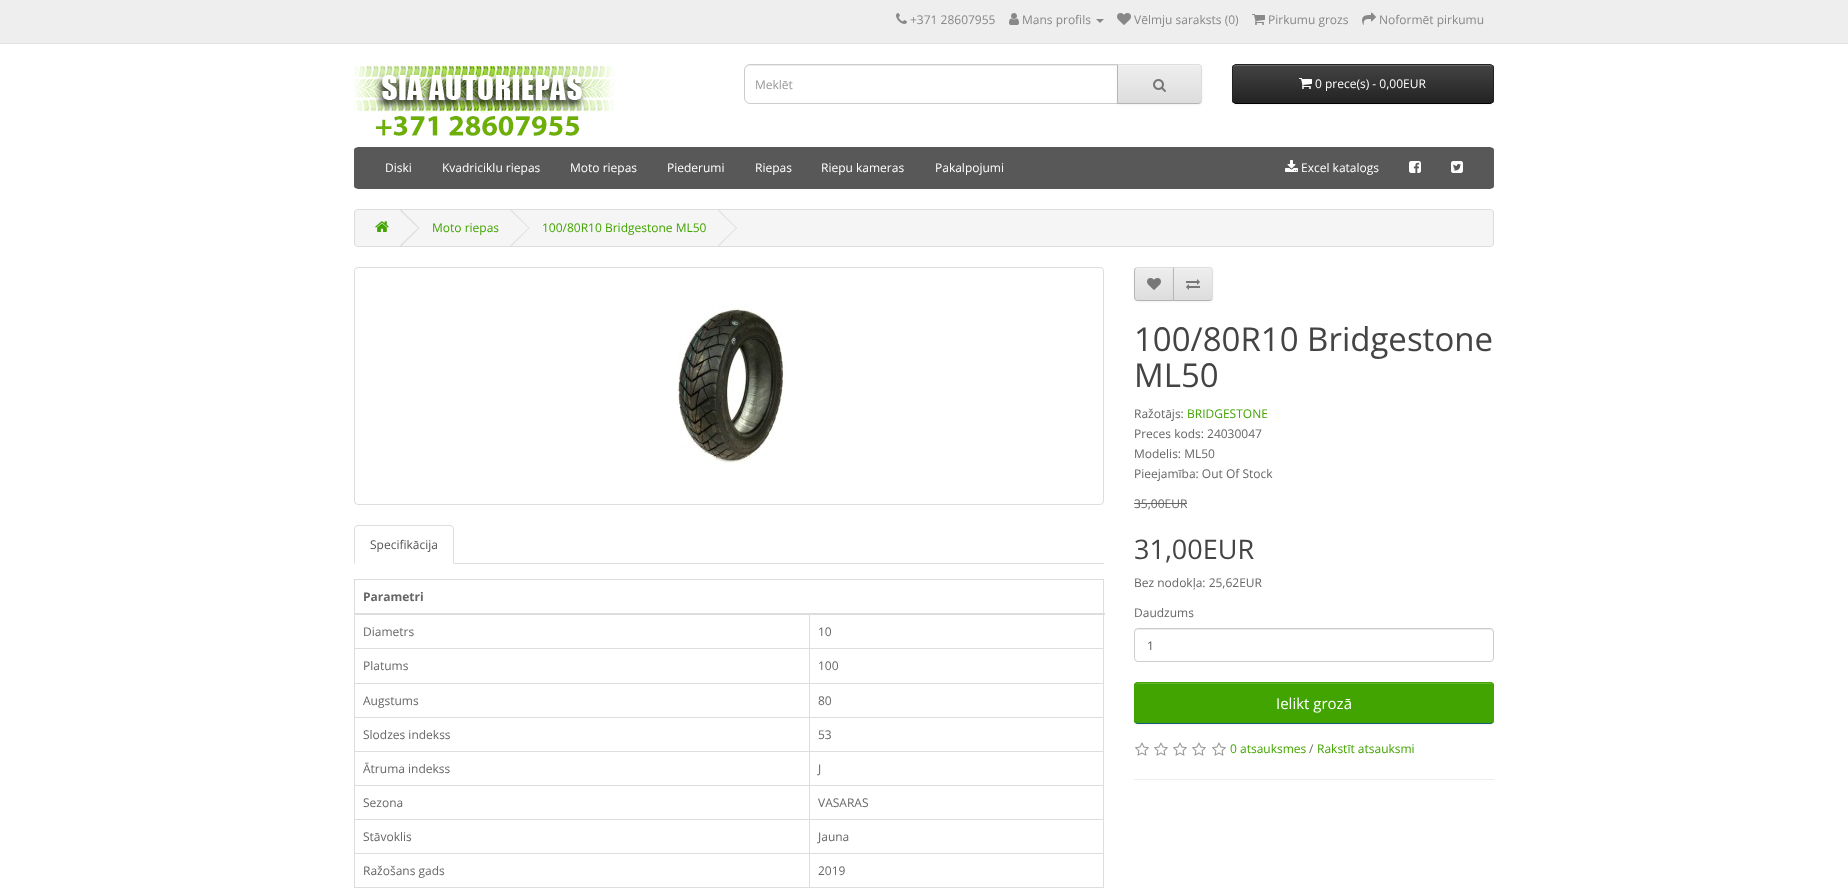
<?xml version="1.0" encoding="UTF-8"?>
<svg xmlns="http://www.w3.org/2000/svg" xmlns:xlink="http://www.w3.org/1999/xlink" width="1848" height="894">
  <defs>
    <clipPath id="clip1"><path d="M 1117 64 h 81 c 2 0 4 2 4 4 v 32 c 0 2 -2 4 -4 4 h -81 z" /></clipPath>
    <linearGradient id="g1" gradientUnits="userSpaceOnUse" x1="1160" y1="65" x2="1160" y2="103"><stop offset="0" stop-color="#eeeeee" /><stop offset="1" stop-color="#dddddd" /></linearGradient>
    <clipPath id="clip2"><rect x="1232" y="64" width="262" height="40" rx="4" /></clipPath>
    <linearGradient id="g2" gradientUnits="userSpaceOnUse" x1="1363" y1="65" x2="1363" y2="103"><stop offset="0" stop-color="#444444" /><stop offset="1" stop-color="#222222" /></linearGradient>
    <clipPath id="clip3"><rect x="354" y="147" width="1140" height="42" rx="4" /></clipPath>
    <clipPath id="clip4"><path d="M 1138 267 h 36 v 34 h -36 c -2 0 -4 -2 -4 -4 v -26 c 0 -2 2 -4 4 -4 z" /></clipPath>
    <linearGradient id="g3" gradientUnits="userSpaceOnUse" x1="1154" y1="268" x2="1154" y2="300"><stop offset="0" stop-color="#eeeeee" /><stop offset="1" stop-color="#dddddd" /></linearGradient>
    <clipPath id="clip5"><path d="M 1173 267 h 36 c 2 0 4 2 4 4 v 26 c 0 2 -2 4 -4 4 h -36 z" /></clipPath>
    <linearGradient id="g4" gradientUnits="userSpaceOnUse" x1="1193" y1="268" x2="1193" y2="300"><stop offset="0" stop-color="#eeeeee" /><stop offset="1" stop-color="#dddddd" /></linearGradient>
    <clipPath id="clip6"><rect x="1134" y="682" width="360" height="42" rx="4" /></clipPath>
  </defs>
  <rect width="100%" height="100%" fill="#ffffff" />
  <rect width="1848" height="43" fill="#eeeeee" />
  <rect y="43" width="1848" height="1" fill="#e2e2e2" />
  <image x="896" y="13" width="11" height="11" xlink:href="image1.png" />
  <image x="1009" y="13" width="10" height="12" xlink:href="image2.png" />
  <path d="M 1096 19 h 8 l -4 4 z" fill="#888888" />
  <image x="1117" y="13" width="14" height="12" xlink:href="image3.png" />
  <image x="1252" y="14" width="13" height="11" xlink:href="image4.png" />
  <image x="1362" y="12" width="14" height="13" xlink:href="image5.png" />
  <image x="354" y="65" width="261" height="71" xlink:href="image6.png" />
  <path d="M 750 66 h 367 v -1 h -367 c -3 0 -5 2 -5 5 v 1 c 0 -3 2 -5 5 -5 z" fill="#ececec" />
  <path d="M 750 64.5 h 367.5 v 39 h -367.5 c -3 0 -5.5 -2.5 -5.5 -5.5 v -28 c 0 -3 2.5 -5.5 5.5 -5.5 z" fill="none" stroke="#cccccc" />
  <rect x="1117" y="65" width="85" height="40" rx="4" fill="#000000" fill-opacity="0.05" filter="blur(1px)" />
  <path d="M 1117 64 h 81 c 2 0 4 2 4 4 v 32 c 0 2 -2 4 -4 4 h -81 z" fill="#e7e7e7" />
  <g clip-path="url(#clip1)">
    <rect x="1118" y="65" width="84" height="38" fill="url(#g1)" />
  </g>
  <path d="M 1118 66 h 80 c 2 0 3 1 3 3 v -1 c 0 -2 -1 -3 -3 -3 h -80 z" fill="#f1f1f1" />
  <path d="M 1117 64 l 1 1 h 81 l 1 1 l 1 -1 l -3 -1 z" fill="#dddddd" />
  <path d="M 1202 100 v -32 c 0 -1 -0.5 -2 -1 -3 l -1 1 c 1 0 1 1 1 2 v 32 c 0 1 0 2 -1 2 l 1 1 c 0.5 -1 1 -2 1 -3 z" fill="#dddddd" />
  <path d="M 1198 104 l 3 -1 l -1 -1 l -1 1 h -81 l -1 1 z" fill="#b3b3b3" />
  <path d="M 1117 64 v 40 l 1 -1 v -38 z" fill="#b7b7b7" />
  <image x="1153" y="79" width="13" height="13" xlink:href="image7.png" />
  <rect x="1232" y="65" width="262" height="40" rx="4" fill="#000000" fill-opacity="0.05" filter="blur(1px)" />
  <g clip-path="url(#clip2)">
    <rect x="1232" y="65" width="262" height="38" fill="url(#g2)" />
  </g>
  <path d="M 1236 66 h 255 l 2 1 v 2 v -1 c 0 -2 -1 -3 -3 -3 h -254 c -2 0 -3 1 -3 3 v 1 c 0 -2 1 -3 3 -3 z" fill="#696969" />
  <path d="M 1492.5 102.5 c -0.5 0.5 -1.5 1 -2.5 1 h -254 c -1 0 -2 -0.5 -2.5 -1" fill="none" stroke="#000000" />
  <path d="M 1233.5 102.5 c -0.5 -0.5 -1 -1.5 -1 -2.5 v -32 c 0 -1 0.5 -2 1 -2.5 c 0.5 -0.5 1.5 -1 2.5 -1 h 254 c 1 0 2 0.5 2.5 1 c 0.5 0.5 1 1.5 1 2.5 v 32 c 0 1 -0.5 2 -1 2.5" fill="none" stroke="#222222" />
  <image x="1299" y="78" width="13" height="11" xlink:href="image8.png" />
  <g clip-path="url(#clip3)">
    <rect x="354" y="148" width="1140" height="40" fill="#585858" />
  </g>
  <rect x="354.5" y="147.5" width="1139" height="41" rx="3.5" fill="none" stroke="#585858" />
  <image x="1285" y="160" width="13" height="12" xlink:href="image9.png" />
  <image x="1409" y="161" width="12" height="12" xlink:href="image10.png" />
  <image x="1451" y="161" width="12" height="12" xlink:href="image11.png" />
  <rect x="354.5" y="209.5" width="1139" height="37" rx="3.5" fill="#f5f5f5" stroke="#dddddd" />
  <image x="375" y="221" width="14" height="11" xlink:href="image12.png" />
  <path d="M 400 210.5 l 1 -1 l 18.5 18.5 l -1 0.5 z" fill="#dddddd" />
  <path d="M 400 245.5 l 18.5 -18 l 1 0.5 l -18.5 18.5 z" fill="#dddddd" />
  <path d="M 510.5 210.5 l 0.5 -1 l 18.5 18.5 l -0.5 0.5 z" fill="#dddddd" />
  <path d="M 510.5 245.5 l 18.5 -18 l 0.5 0.5 l -18.5 18.5 z" fill="#dddddd" />
  <path d="M 718 210.5 l 0.5 -1 l 18.5 18.5 l -0.5 0.5 z" fill="#dddddd" />
  <path d="M 718 245.5 l 18.5 -18 l 0.5 0.5 l -18.5 18.5 z" fill="#dddddd" />
  <rect x="354.5" y="267.5" width="749" height="237" rx="3.5" fill="none" stroke="#dddddd" />
  <image x="677" y="304" width="108" height="160" xlink:href="image13.png" />
  <rect x="454" y="563" width="650" height="1" fill="#dddddd" />
  <path d="M 358 525 l -3 1 l 1 1 l 2 -1 h 92 l 2 1 l 1 -1 l -3 -1 z" fill="#dddddd" />
  <path d="M 454 564 v -35 c 0 -1 -0.5 -2 -1 -3 l -1 1 c 1 0 1 1 1 2 v 34 z" fill="#dddddd" />
  <path d="M 354 564 l 1 -1 v -34 c 0 -1 0 -2 1 -2 l -1 -1 c -0.5 1 -1 2 -1 3 z" fill="#dddddd" />
  <rect x="354" y="579" width="750" height="1" fill="#dddddd" />
  <rect x="1103" y="579" width="1" height="309" fill="#dddddd" />
  <rect x="354" y="887" width="750" height="1" fill="#dddddd" />
  <rect x="354" y="579" width="1" height="309" fill="#dddddd" />
  <rect x="809" y="648" width="295" height="1" fill="#dddddd" />
  <rect x="809" y="683" width="295" height="1" fill="#dddddd" />
  <rect x="809" y="717" width="295" height="1" fill="#dddddd" />
  <rect x="809" y="751" width="295" height="1" fill="#dddddd" />
  <rect x="809" y="785" width="295" height="1" fill="#dddddd" />
  <rect x="809" y="819" width="295" height="1" fill="#dddddd" />
  <rect x="809" y="853" width="295" height="1" fill="#dddddd" />
  <rect x="809" y="853" width="1" height="35" fill="#dddddd" />
  <rect x="354" y="853" width="456" height="1" fill="#dddddd" />
  <rect x="809" y="819" width="1" height="35" fill="#dddddd" />
  <rect x="354" y="819" width="456" height="1" fill="#dddddd" />
  <rect x="809" y="785" width="1" height="35" fill="#dddddd" />
  <rect x="354" y="785" width="456" height="1" fill="#dddddd" />
  <rect x="809" y="751" width="1" height="35" fill="#dddddd" />
  <rect x="354" y="751" width="456" height="1" fill="#dddddd" />
  <rect x="809" y="717" width="1" height="35" fill="#dddddd" />
  <rect x="354" y="717" width="456" height="1" fill="#dddddd" />
  <rect x="809" y="683" width="1" height="35" fill="#dddddd" />
  <rect x="354" y="683" width="456" height="1" fill="#dddddd" />
  <rect x="809" y="648" width="1" height="36" fill="#dddddd" />
  <rect x="354" y="648" width="456" height="1" fill="#dddddd" />
  <rect x="809" y="614" width="1" height="35" fill="#dddddd" />
  <rect x="354" y="613" width="751" height="2" fill="#dddddd" />
  <rect x="1134" y="268" width="40" height="34" rx="4" fill="#000000" fill-opacity="0.05" filter="blur(1px)" />
  <g clip-path="url(#clip4)">
    <rect x="1134" y="268" width="39" height="32" fill="url(#g3)" />
  </g>
  <path d="M 1138 269 h 35 v -1 h -35 c -1.5 0 -3 1.5 -3 3 v 1 c 0 -2 1 -3 3 -3 z" fill="#f1f1f1" />
  <path d="M 1138 267 c -1 0 -2 0.5 -3 1 l 1 1 c 0 -1 1 -1 2 -1 h 35 l 1 -1 z" fill="#dddddd" />
  <path d="M 1174 301 l -1 -1 h -35 c -1 0 -2 0 -2 -1 l -1 1 c 1 0.5 2 1 3 1 z" fill="#b3b3b3" />
  <path d="M 1134 271 v 26 c 0 1 0.5 2 1 3 l 1 -1 c -1 0 -1 -1 -1 -2 v -26 c 0 -1 0 -2 1 -2 l -1 -1 c -0.5 1 -1 2 -1 3 z" fill="#b7b7b7" />
  <image x="1147" y="278" width="14" height="12" xlink:href="image14.png" />
  <rect x="1173" y="268" width="40" height="34" rx="4" fill="#000000" fill-opacity="0.05" filter="blur(1px)" />
  <g clip-path="url(#clip5)">
    <rect x="1174" y="268" width="39" height="32" fill="url(#g4)" />
  </g>
  <path d="M 1174 269 h 35 c 2 0 3 1 3 3 v -1 c 0 -1.5 -1.5 -3 -3 -3 h -35 z" fill="#f1f1f1" />
  <path d="M 1173 267 l 1 1 h 35 c 1 0 2 0 2 1 l 1 -1 c -1 -0.5 -2 -1 -3 -1 z" fill="#dddddd" />
  <path d="M 1213 297 v -26 c 0 -1 -0.5 -2 -1 -3 l -1 1 c 1 0 1 1 1 2 v 26 c 0 1 0 2 -1 2 l 1 1 c 0.5 -1 1 -2 1 -3 z" fill="#dddddd" />
  <path d="M 1209 301 c 1 0 2 -0.5 3 -1 l -1 -1 c 0 1 -1 1 -2 1 h -35 l -1 1 z" fill="#b3b3b3" />
  <path d="M 1173 267 v 34 l 1 -1 v -32 z" fill="#b7b7b7" />
  <image x="1186" y="279" width="14" height="11" xlink:href="image15.png" />
  <rect x="1134" y="503" width="53" height="1" fill="#666666" />
  <path d="M 1138 630 h 352 c 2 0 3 1 3 3 c 0 -2 -1 -4 -3 -4 h -352 l -2 1 l -1 3 c 0 -2 1 -3 3 -3 z" fill="#ececec" />
  <rect x="1134.5" y="628.5" width="359" height="33" rx="3.5" fill="none" stroke="#cccccc" />
  <rect x="1134" y="683" width="360" height="42" rx="4" fill="#000000" fill-opacity="0.05" filter="blur(1px)" />
  <rect x="1134" y="682" width="360" height="42" rx="4" fill="#42a400" />
  <g clip-path="url(#clip6)">
    <rect x="1134" y="683" width="360" height="40" fill="#42a400" />
  </g>
  <path d="M 1138 684 h 352 c 2 0 3 1 3 3 c 0 -2 -1 -4 -3 -4 h -352 l -2 1 l -1 3 c 0 -2 1 -3 3 -3 z" fill="#68b633" />
  <path d="M 1492.5 722.5 l -2.5 1 h -352 l -2.5 -1" fill="none" stroke="#145e7a" />
  <path d="M 1135.5 722.5 c -0.5 -0.5 -1 -1.5 -1 -2.5 v -34 c 0 -1 0.5 -2 1 -2.5 c 0.5 -0.5 1.5 -1 2.5 -1 h 352 c 1 0 2 0.5 2.5 1 c 0.5 0.5 1 1.5 1 2.5 v 34 c 0 1 -0.5 2 -1 2.5" fill="none" stroke="#42a400" />
  <image x="1135" y="742" width="14" height="14" xlink:href="image16.png" />
  <image x="1154" y="742" width="14" height="14" xlink:href="image16.png" />
  <image x="1173" y="742" width="14" height="14" xlink:href="image16.png" />
  <image x="1192" y="742" width="14" height="14" xlink:href="image16.png" />
  <image x="1212" y="742" width="14" height="14" xlink:href="image16.png" />
  <rect x="1134" y="779" width="360" height="1" fill="#eeeeee" />
  <text x="910" y="24" style="font-family: Open Sans; font-size: 12px; fill: #888888">+371 28607955</text>
  <text x="1022" y="24" style="font-family: Open Sans; font-size: 12px; fill: #888888">Mans profils</text>
  <text x="1134" y="24" style="font-family: Open Sans; font-size: 12px; fill: #888888">Vēlmju saraksts (0)</text>
  <text x="1268" y="24" style="font-family: Open Sans; font-size: 12px; fill: #888888">Pirkumu grozs</text>
  <text x="1379" y="24" style="font-family: Open Sans; font-size: 12px; fill: #888888">Noformēt pirkumu</text>
  <text x="755" y="89" style="font-family: Open Sans; font-size: 12px; fill: #999999">Meklēt</text>
  <text x="1315" y="88" style="font-family: Open Sans; font-size: 12px; fill: #ffffff">0 prece(s) - 0,00EUR</text>
  <text x="385" y="172" style="font-family: Open Sans; font-size: 12px; fill: #ffffff">Diski</text>
  <text x="442" y="172" style="font-family: Open Sans; font-size: 12px; fill: #ffffff">Kvadriciklu riepas</text>
  <text x="570" y="172" style="font-family: Open Sans; font-size: 12px; fill: #ffffff">Moto riepas</text>
  <text x="667" y="172" style="font-family: Open Sans; font-size: 12px; fill: #ffffff">Piederumi</text>
  <text x="755" y="172" style="font-family: Open Sans; font-size: 12px; fill: #ffffff">Riepas</text>
  <text x="821" y="172" style="font-family: Open Sans; font-size: 12px; fill: #ffffff">Riepu kameras</text>
  <text x="935" y="172" style="font-family: Open Sans; font-size: 12px; fill: #ffffff">Pakalpojumi</text>
  <text x="1301" y="172" style="font-family: Open Sans; font-size: 12px; fill: #ffffff">Excel katalogs</text>
  <text x="432" y="232" style="font-family: Open Sans; font-size: 12px; fill: #42a400">Moto riepas</text>
  <text x="542" y="232" style="font-family: Open Sans; font-size: 12px; fill: #42a400">100/80R10 Bridgestone ML50</text>
  <text x="370" y="549" style="font-family: Open Sans; font-size: 12px; fill: #555555">Specifikācija</text>
  <text x="363" y="601" style="font-family: Open Sans; font-size: 12px; font-weight: bold; fill: #666666">Parametri</text>
  <text x="363" y="636" style="font-family: Open Sans; font-size: 12px; fill: #666666">Diametrs</text>
  <text x="818" y="636" style="font-family: Open Sans; font-size: 12px; fill: #666666">10</text>
  <text x="363" y="670" style="font-family: Open Sans; font-size: 12px; fill: #666666">Platums</text>
  <text x="818" y="670" style="font-family: Open Sans; font-size: 12px; fill: #666666">100</text>
  <text x="363" y="705" style="font-family: Open Sans; font-size: 12px; fill: #666666">Augstums</text>
  <text x="818" y="705" style="font-family: Open Sans; font-size: 12px; fill: #666666">80</text>
  <text x="363" y="739" style="font-family: Open Sans; font-size: 12px; fill: #666666">Slodzes indekss</text>
  <text x="818" y="739" style="font-family: Open Sans; font-size: 12px; fill: #666666">53</text>
  <text x="363" y="773" style="font-family: Open Sans; font-size: 12px; fill: #666666">Ātruma indekss</text>
  <text x="818" y="773" style="font-family: Open Sans; font-size: 12px; fill: #666666">J</text>
  <text x="363" y="807" style="font-family: Open Sans; font-size: 12px; fill: #666666">Sezona</text>
  <text x="818" y="807" style="font-family: Open Sans; font-size: 12px; fill: #666666">VASARAS</text>
  <text x="363" y="841" style="font-family: Open Sans; font-size: 12px; fill: #666666">Stāvoklis</text>
  <text x="818" y="841" style="font-family: Open Sans; font-size: 12px; fill: #666666">Jauna</text>
  <text x="363" y="875" style="font-family: Open Sans; font-size: 12px; fill: #666666">Ražošans gads</text>
  <text x="818" y="875" style="font-family: Open Sans; font-size: 12px; fill: #666666">2019</text>
  <text x="1134" y="351" style="font-family: Open Sans; font-size: 33px; fill: #444444">100/80R10 Bridgestone</text>
  <text x="1134" y="387" style="font-family: Open Sans; font-size: 33px; fill: #444444">ML50</text>
  <text x="1134" y="418" style="font-family: Open Sans; font-size: 12px; fill: #666666">Ražotājs:</text>
  <text x="1187" y="418" style="font-family: Open Sans; font-size: 12px; fill: #42a400">BRIDGESTONE</text>
  <text x="1134" y="438" style="font-family: Open Sans; font-size: 12px; fill: #666666">Preces kods: 24030047</text>
  <text x="1134" y="458" style="font-family: Open Sans; font-size: 12px; fill: #666666">Modelis: ML50</text>
  <text x="1134" y="478" style="font-family: Open Sans; font-size: 12px; fill: #666666">Pieejamība: Out Of Stock</text>
  <text x="1134" y="508" style="font-family: Open Sans; font-size: 12px; fill: #666666">35,00EUR</text>
  <text x="1134" y="559" style="font-family: Open Sans; font-size: 27px; fill: #444444">31,00EUR</text>
  <text x="1134" y="587" style="font-family: Open Sans; font-size: 12px; fill: #666666">Bez nodokļa: 25,62EUR</text>
  <text x="1134" y="617" style="font-family: Open Sans; font-size: 12px; fill: #666666">Daudzums</text>
  <text x="1147" y="650" style="font-family: Open Sans; font-size: 12px; fill: #555555">1</text>
  <text x="1276" y="709" style="font-family: Open Sans; font-size: 15px; fill: #ffffff">Ielikt grozā</text>
  <text x="1230" y="753" style="font-family: Open Sans; font-size: 12px; fill: #42a400">0 atsauksmes</text>
  <text x="1309" y="753" style="font-family: Open Sans; font-size: 12px; fill: #666666">/</text>
  <text x="1317" y="753" style="font-family: Open Sans; font-size: 12px; fill: #42a400">Rakstīt atsauksmi</text>
</svg>
